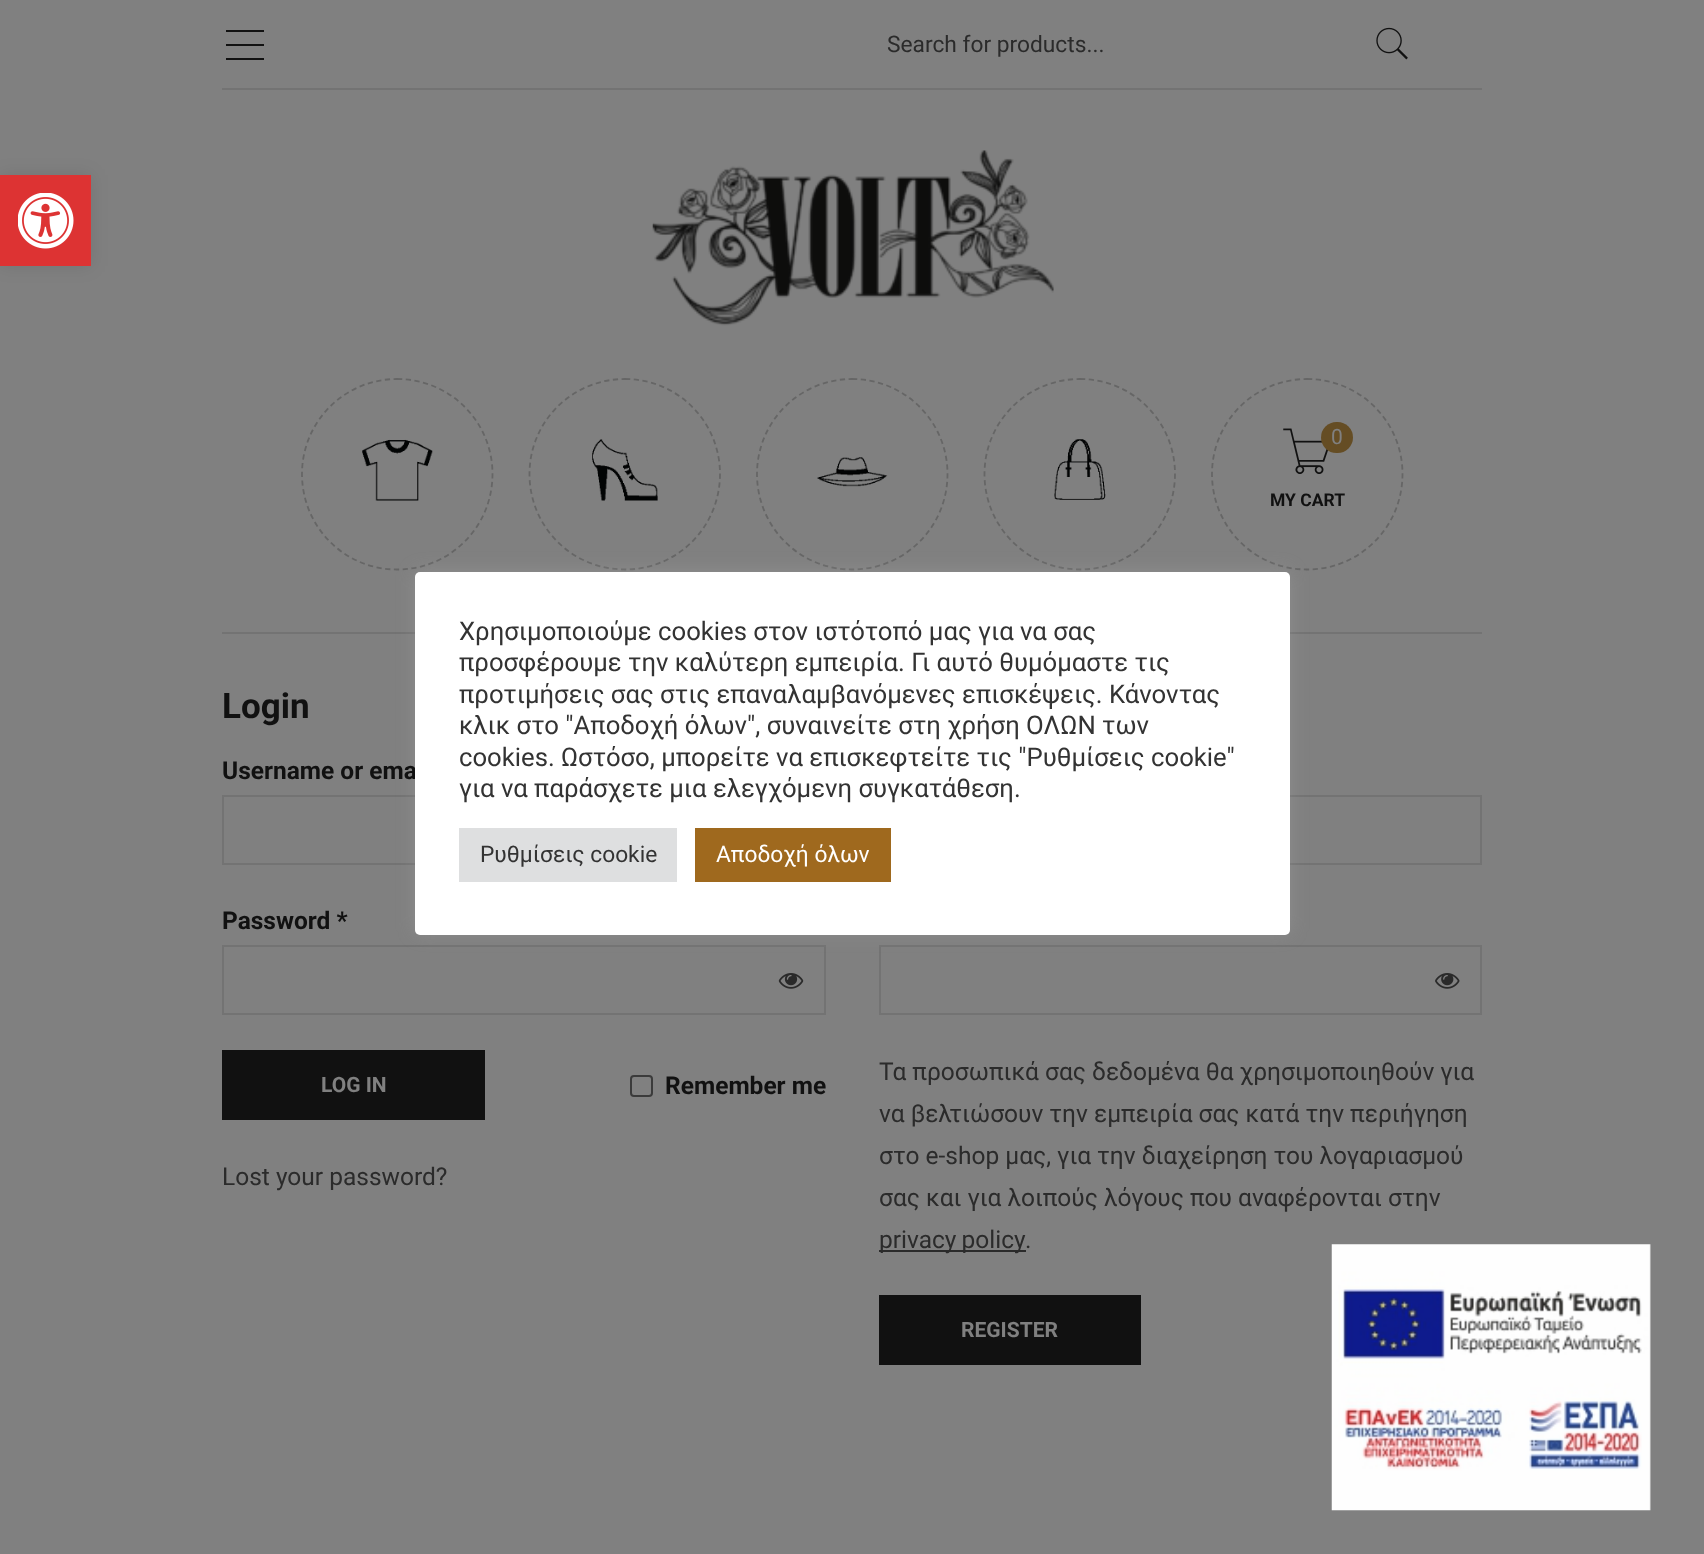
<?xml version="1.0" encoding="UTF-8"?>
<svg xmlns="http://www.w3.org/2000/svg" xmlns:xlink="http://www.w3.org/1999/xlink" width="1704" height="1554">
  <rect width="100%" height="100%" fill="#808080" />
  <rect y="175" width="91" height="91" fill="#000000" fill-opacity="0.1" filter="blur(9px)" />
  <rect y="175" width="91" height="91" fill="#dd3333" />
  <image x="18" y="193" width="56" height="56" xlink:href="image1.png" />
  <rect x="222" y="88" width="1260" height="2" fill="#737373" />
  <rect x="226" y="30" width="38" height="2" fill="#111111" />
  <rect x="226" y="44" width="38" height="2" fill="#111111" />
  <rect x="226" y="58" width="38" height="2" fill="#111111" />
  <image x="1376" y="27" width="32" height="33" xlink:href="image2.png" />
  <path d="M 222 91 v 543 h 1260 v -2 h -1260 z" fill="#737373" />
  <image x="652" y="150" width="402" height="176" xlink:href="image3.png" />
  <path d="M 397 379 c 53 0 95.5 42.5 95.5 95 c 0 53 -42.5 95.5 -95.5 95.5 c -52.5 0 -95 -42.5 -95 -95.5 c 0 -52.5 42.5 -95 95 -95 z" fill="none" stroke="#666666" stroke-width="1.8" stroke-dasharray="5.25 3.5" />
  <image x="362" y="439" width="71" height="62" xlink:href="image4.png" />
  <path d="M 625 379 c 52.5 0 95 42.5 95 95 c 0 53 -42.5 95.5 -95 95.5 c -53 0 -95.5 -42.5 -95.5 -95.5 c 0 -52.5 42.5 -95 95.5 -95 z" fill="none" stroke="#666666" stroke-width="1.8" stroke-dasharray="5.25 3.5" />
  <image x="592" y="439" width="66" height="62" xlink:href="image5.png" />
  <path d="M 852 379 c 53 0 95.5 42.5 95.5 95 c 0 53 -42.5 95.5 -95.5 95.5 c -52.5 0 -95 -42.5 -95 -95.5 c 0 -52.5 42.5 -95 95 -95 z" fill="none" stroke="#666666" stroke-width="1.8" stroke-dasharray="5.25 3.5" />
  <image x="817" y="457" width="71" height="30" xlink:href="image6.png" />
  <path d="M 1080 379 c 52.5 0 95 42.5 95 95 c 0 53 -42.5 95.5 -95 95.5 c -53 0 -95.5 -42.5 -95.5 -95.5 c 0 -52.5 42.5 -95 95.5 -95 z" fill="none" stroke="#666666" stroke-width="1.8" stroke-dasharray="5.25 3.5" />
  <image x="1054" y="439" width="52" height="61" xlink:href="image7.png" />
  <path d="M 1307 379 c 53 0 95.5 42.5 95.5 95 c 0 53 -42.5 95.5 -95.5 95.5 c -52.5 0 -95 -42.5 -95 -95.5 c 0 -52.5 42.5 -95 95 -95 z" fill="none" stroke="#666666" stroke-width="1.8" stroke-dasharray="5.25 3.5" />
  <image x="1283" y="428" width="46" height="46" xlink:href="image8.png" />
  <rect x="1321" y="422" width="32" height="31" rx="15.5" fill="#654d24" />
  <rect x="223" y="796" width="602" height="68" fill="none" stroke="#737373" stroke-width="2" />
  <rect x="223" y="946" width="602" height="68" fill="none" stroke="#737373" stroke-width="2" />
  <image x="778" y="973" width="26" height="16" xlink:href="image9.png" />
  <rect x="222" y="1050" width="263" height="70" fill="#111111" />
  <rect x="631" y="1076" width="21" height="20" rx="3" fill="none" stroke="#3b3b3b" stroke-width="2" />
  <rect x="880" y="796" width="601" height="68" fill="none" stroke="#737373" stroke-width="2" />
  <rect x="880" y="946" width="601" height="68" fill="none" stroke="#737373" stroke-width="2" />
  <image x="1435" y="973" width="25" height="16" xlink:href="image10.png" />
  <rect x="879" y="1250" width="147" height="2" fill="#2b2b2b" />
  <rect x="879" y="1295" width="262" height="70" fill="#111111" />
  <image x="1331" y="1244" width="320" height="267" xlink:href="image11.png" />
  <rect x="415" y="571" width="875" height="362" rx="5" fill="#acabab" fill-opacity="0.3" filter="blur(9px)" />
  <text x="887" y="52" style="font-family: Roboto; font-size: 22.75px; fill: #2b2b2b">Search for products...</text>
  <text x="1331" y="444" style="font-family: Roboto; font-size: 21px; fill: #808080">0</text>
  <text x="1270" y="506" style="font-family: Roboto; font-size: 17.5px; font-weight: bold; fill: #111111">MY CART</text>
  <text x="222" y="718" style="font-family: Roboto; font-size: 35px; font-weight: bold; fill: #111111">Login</text>
  <text x="222" y="779" style="font-family: Roboto; font-size: 24.5px; font-weight: bold; fill: #111111">Username or ema</text>
  <text x="222" y="929" style="font-family: Roboto; font-size: 24.5px; font-weight: bold; fill: #111111">Password *</text>
  <text x="321" y="1092" style="font-family: Roboto; font-size: 21px; font-weight: bold; fill: #808080">LOG IN</text>
  <text x="665" y="1094" style="font-family: Roboto; font-size: 24.5px; font-weight: bold; fill: #111111">Remember me</text>
  <text x="222" y="1185" style="font-family: Roboto; font-size: 24.5px; fill: #2b2b2b">Lost your password?</text>
  <text x="879" y="1080" style="font-family: Roboto; font-size: 24.5px; fill: #2b2b2b">Τα προσωπικά σας δεδομένα θα χρησιμοποιηθούν για</text>
  <text x="879" y="1122" style="font-family: Roboto; font-size: 24.5px; fill: #2b2b2b">να βελτιώσουν την εμπειρία σας κατά την περιήγηση</text>
  <text x="879" y="1164" style="font-family: Roboto; font-size: 24.5px; fill: #2b2b2b">στο e-shop μας, για την διαχείρηση του λογαριασμού</text>
  <text x="879" y="1206" style="font-family: Roboto; font-size: 24.5px; fill: #2b2b2b">σας και για λοιπούς λόγους που αναφέρονται στην</text>
  <text x="879" y="1248" word-spacing="-1" style="font-family: Roboto; font-size: 24.5px; fill: #2b2b2b">privacy policy</text>
  <text x="1025" y="1248" style="font-family: Roboto; font-size: 24.5px; fill: #2b2b2b">.</text>
  <text x="961" y="1337" style="font-family: Roboto; font-size: 21px; font-weight: bold; fill: #808080">REGISTER</text>
  <rect x="415" y="572" width="875" height="363" rx="5" fill="#ffffff" />
  <text x="459" y="640" style="font-family: Roboto; font-size: 25.7px; fill: #333333">Χρησιμοποιούμε cookies στον ιστότοπό μας για να σας</text>
  <text x="459" y="671" style="font-family: Roboto; font-size: 25.7px; fill: #333333">προσφέρουμε την καλύτερη εμπειρία. Γι αυτό θυμόμαστε τις</text>
  <text x="459" y="703" style="font-family: Roboto; font-size: 25.7px; fill: #333333">προτιμήσεις σας στις επαναλαμβανόμενες επισκέψεις. Κάνοντας</text>
  <text x="459" y="734" style="font-family: Roboto; font-size: 25.7px; fill: #333333">κλικ στο "Αποδοχή όλων", συναινείτε στη χρήση ΟΛΩΝ των</text>
  <text x="459" y="766" style="font-family: Roboto; font-size: 25.7px; fill: #333333">cookies. Ωστόσο, μπορείτε να επισκεφτείτε τις "Ρυθμίσεις cookie"</text>
  <text x="459" y="797" style="font-family: Roboto; font-size: 25.7px; fill: #333333">για να παράσχετε μια ελεγχόμενη συγκατάθεση.</text>
  <rect x="459" y="828" width="218" height="54" fill="#dedfe0" />
  <text x="480" y="862" style="font-family: Roboto; font-size: 22.75px; fill: #333333">Ρυθμίσεις cookie</text>
  <rect x="695" y="828" width="196" height="54" fill="#9f691e" />
  <text x="716" y="862" style="font-family: Roboto; font-size: 22.75px; fill: #ffffff">Αποδοχή όλων</text>
</svg>
